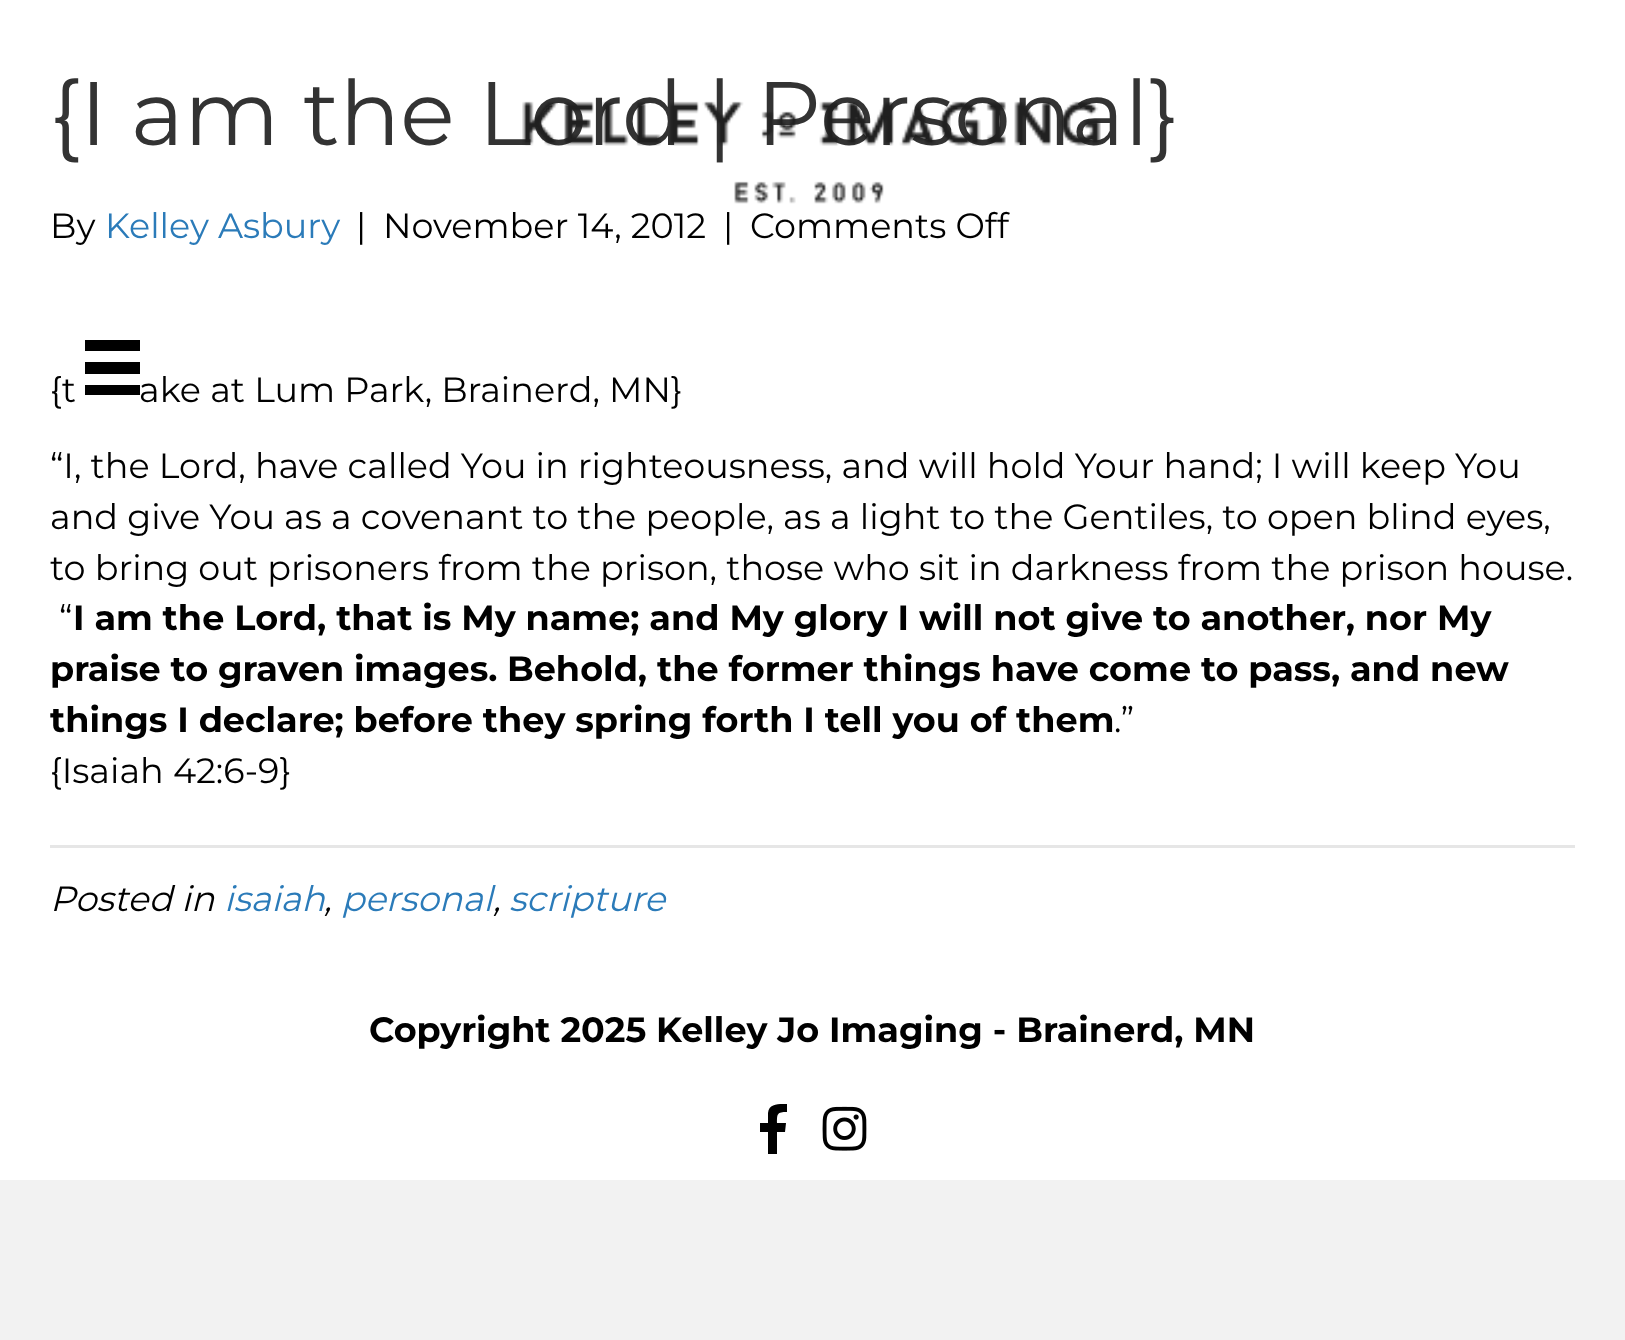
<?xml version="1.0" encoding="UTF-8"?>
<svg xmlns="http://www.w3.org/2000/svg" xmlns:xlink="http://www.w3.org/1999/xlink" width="1625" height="1340">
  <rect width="100%" height="100%" fill="#f2f2f2" />
  <rect width="1625" height="1180" fill="#ffffff" />
  <rect x="50" y="845" width="1525" height="3" fill="#e6e6e6" />
  <rect x="85" y="340" width="55" height="11" fill="#000000" />
  <rect x="85" y="362" width="55" height="12" fill="#000000" />
  <rect x="85" y="385" width="55" height="10" fill="#000000" />
  <path d="M 785 1132 h -8 v 22 h -9 v -22 h -8 v -9 h 8 v -10 c 1 -10 11 -9 19 -9 v 8 c -10 0 -10 2 -10 11 h 9 z" fill="#000000" />
  <image x="822" y="1106" width="45" height="45" xlink:href="image2.png" />
  <text x="50" y="145" style="font-family: Montserrat; font-size: 90px; fill: #333333">{I am the Lord | Personal}</text>
  <text x="50" y="238" style="font-family: Montserrat; font-size: 35px; fill: #000000">By</text>
  <text x="105" y="238" style="font-family: Montserrat; font-size: 35px; fill: #2b7bb9">Kelley Asbury</text>
  <text x="356" y="238" style="font-family: Montserrat; font-size: 35px; fill: #000000">|</text>
  <text x="383" y="238" style="font-family: Montserrat; font-size: 35px; fill: #000000">November 14, 2012</text>
  <text x="723" y="238" style="font-family: Montserrat; font-size: 35px; fill: #000000">|</text>
  <text x="750" y="238" style="font-family: Montserrat; font-size: 35px; fill: #000000">Comments Off</text>
  <text x="50" y="402" style="font-family: Montserrat; font-size: 35px; fill: #000000">{t</text>
  <text x="139" y="402" style="font-family: Montserrat; font-size: 35px; fill: #000000">ake at Lum Park, Brainerd, MN}</text>
  <text x="50" y="478" style="font-family: Montserrat; font-size: 35px; fill: #000000">“I, the Lord, have called You in righteousness, and will hold Your hand; I will keep You</text>
  <text x="50" y="529" style="font-family: Montserrat; font-size: 35px; fill: #000000">and give You as a covenant to the people, as a light to the Gentiles, to open blind eyes,</text>
  <text x="50" y="580" style="font-family: Montserrat; font-size: 35px; fill: #000000">to bring out prisoners from the prison, those who sit in darkness from the prison house.</text>
  <text x="59" y="630" style="font-family: Montserrat; font-size: 35px; fill: #000000">“</text>
  <text x="73" y="630" style="font-family: Montserrat; font-size: 35px; font-weight: bold; fill: #000000">I am the Lord, that is My name; and My glory I will not give to another, nor My</text>
  <text x="50" y="681" style="font-family: Montserrat; font-size: 35px; font-weight: bold; fill: #000000">praise to graven images.</text>
  <text x="507" y="681" style="font-family: Montserrat; font-size: 35px; font-weight: bold; fill: #000000">Behold, the former things have come to pass, and new</text>
  <text x="50" y="732" style="font-family: Montserrat; font-size: 35px; font-weight: bold; fill: #000000">things I declare; before they spring forth I tell you of them</text>
  <text x="1114" y="732" style="font-family: Montserrat; font-size: 35px; fill: #000000">.”</text>
  <text x="50" y="783" style="font-family: Montserrat; font-size: 35px; fill: #000000">{Isaiah 42:6-9}</text>
  <text x="50" y="911" style="font-family: Montserrat; font-size: 35px; font-style: italic; fill: #000000">Posted in</text>
  <text x="224" y="911" style="font-family: Montserrat; font-size: 35px; font-style: italic; fill: #2b7bb9">isaiah</text>
  <text x="324" y="911" style="font-family: Montserrat; font-size: 35px; font-style: italic; fill: #000000">,</text>
  <text x="341" y="911" style="font-family: Montserrat; font-size: 35px; font-style: italic; fill: #2b7bb9">personal</text>
  <text x="509" y="911" style="font-family: Montserrat; font-size: 35px; font-style: italic; fill: #2b7bb9">scripture</text>
  <text x="493" y="911" style="font-family: Montserrat; font-size: 35px; font-style: italic; fill: #000000">,</text>
  <image x="522" y="101" width="579" height="103" xlink:href="image1.png" />
  <text x="369" y="1042" style="font-family: Montserrat; font-size: 35px; font-weight: bold; fill: #000000">Copyright 2025 Kelley Jo Imaging - Brainerd, MN</text>
</svg>
